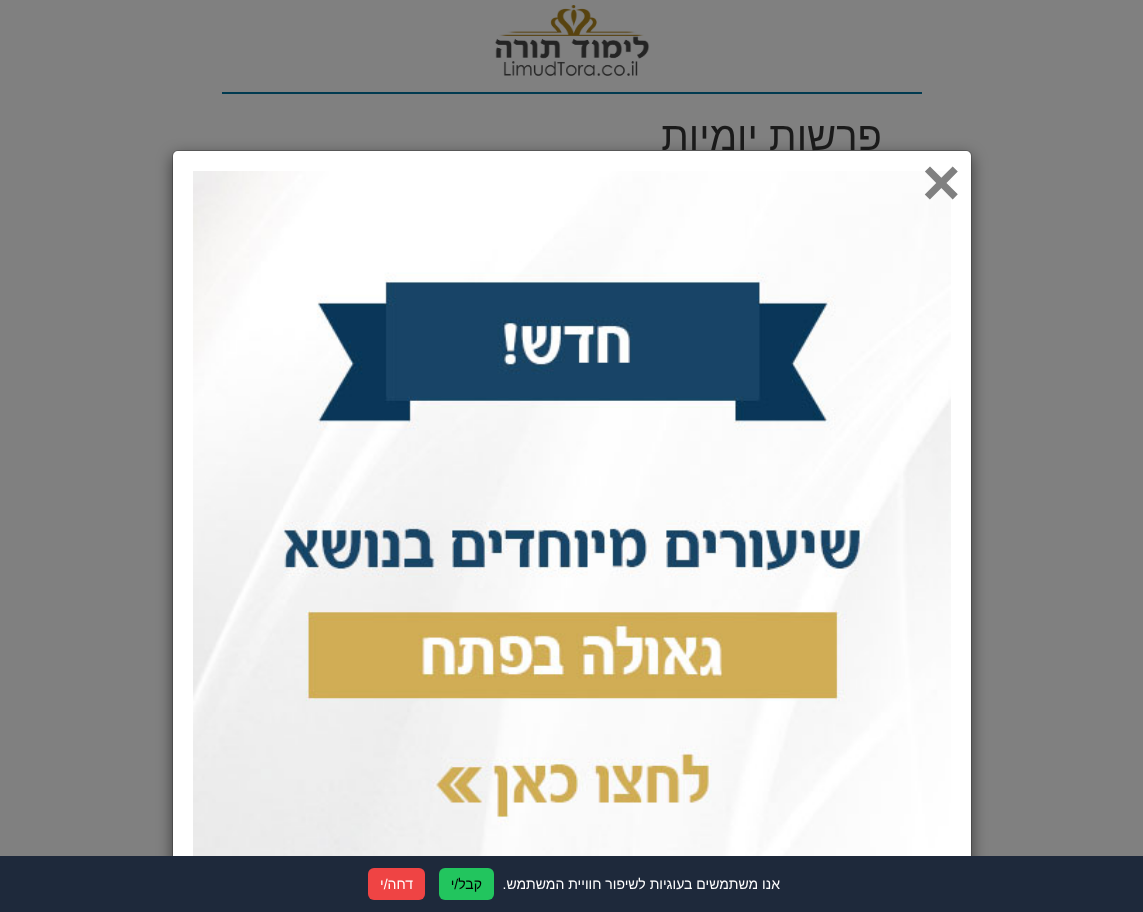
<?xml version="1.0" encoding="UTF-8"?>
<svg xmlns="http://www.w3.org/2000/svg" xmlns:xlink="http://www.w3.org/1999/xlink" width="1143" height="912">
  <rect width="100%" height="100%" fill="#808080" />
  <rect x="222" y="92" width="700" height="2" fill="#003a50" />
  <image x="495" y="5" width="155" height="71" xlink:href="image1.png" />
  <rect x="172" y="155" width="800" height="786" rx="6" fill="#000000" fill-opacity="0.5" filter="blur(7.5px)" />
  <path d="M 178 151 h 788 c 3 0 5 2 5 5 v 756 h -798 v -756 c 0 -3 2 -5 5 -5 z" fill="#ffffff" />
  <text x="882" y="150" style="font-family: Liberation Sans; font-size: 40px; direction: rtl; fill: #1a1a1a">פרשות יומיות</text>
  <rect x="172.5" y="150.5" width="799" height="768" rx="5.5" fill="none" stroke="#000000" stroke-opacity="0.2" />
  <image x="193" y="171" width="758" height="685" xlink:href="image2.png" />
  <text x="922" y="205" style="font-family: Liberation Sans; font-size: 66px; font-weight: bold; fill: #808080">×</text>
  <rect y="856" width="1143" height="56" fill="#1e293b" />
  <text x="780" y="889" style="font-family: Liberation Sans; font-size: 14px; direction: rtl; fill: #ffffff">אנו משתמשים בעוגיות לשיפור חוויית המשתמש.</text>
  <rect x="439" y="868" width="55" height="32" rx="6" fill="#22c55e" />
  <text x="482" y="889" style="font-family: Liberation Sans; font-size: 14px; direction: rtl; fill: #000000">קבל/י</text>
  <rect x="368" y="868" width="57" height="32" rx="6" fill="#ef4444" />
  <text x="413" y="889" style="font-family: Liberation Sans; font-size: 14px; direction: rtl; fill: #ffffff">דחה/י</text>
</svg>
